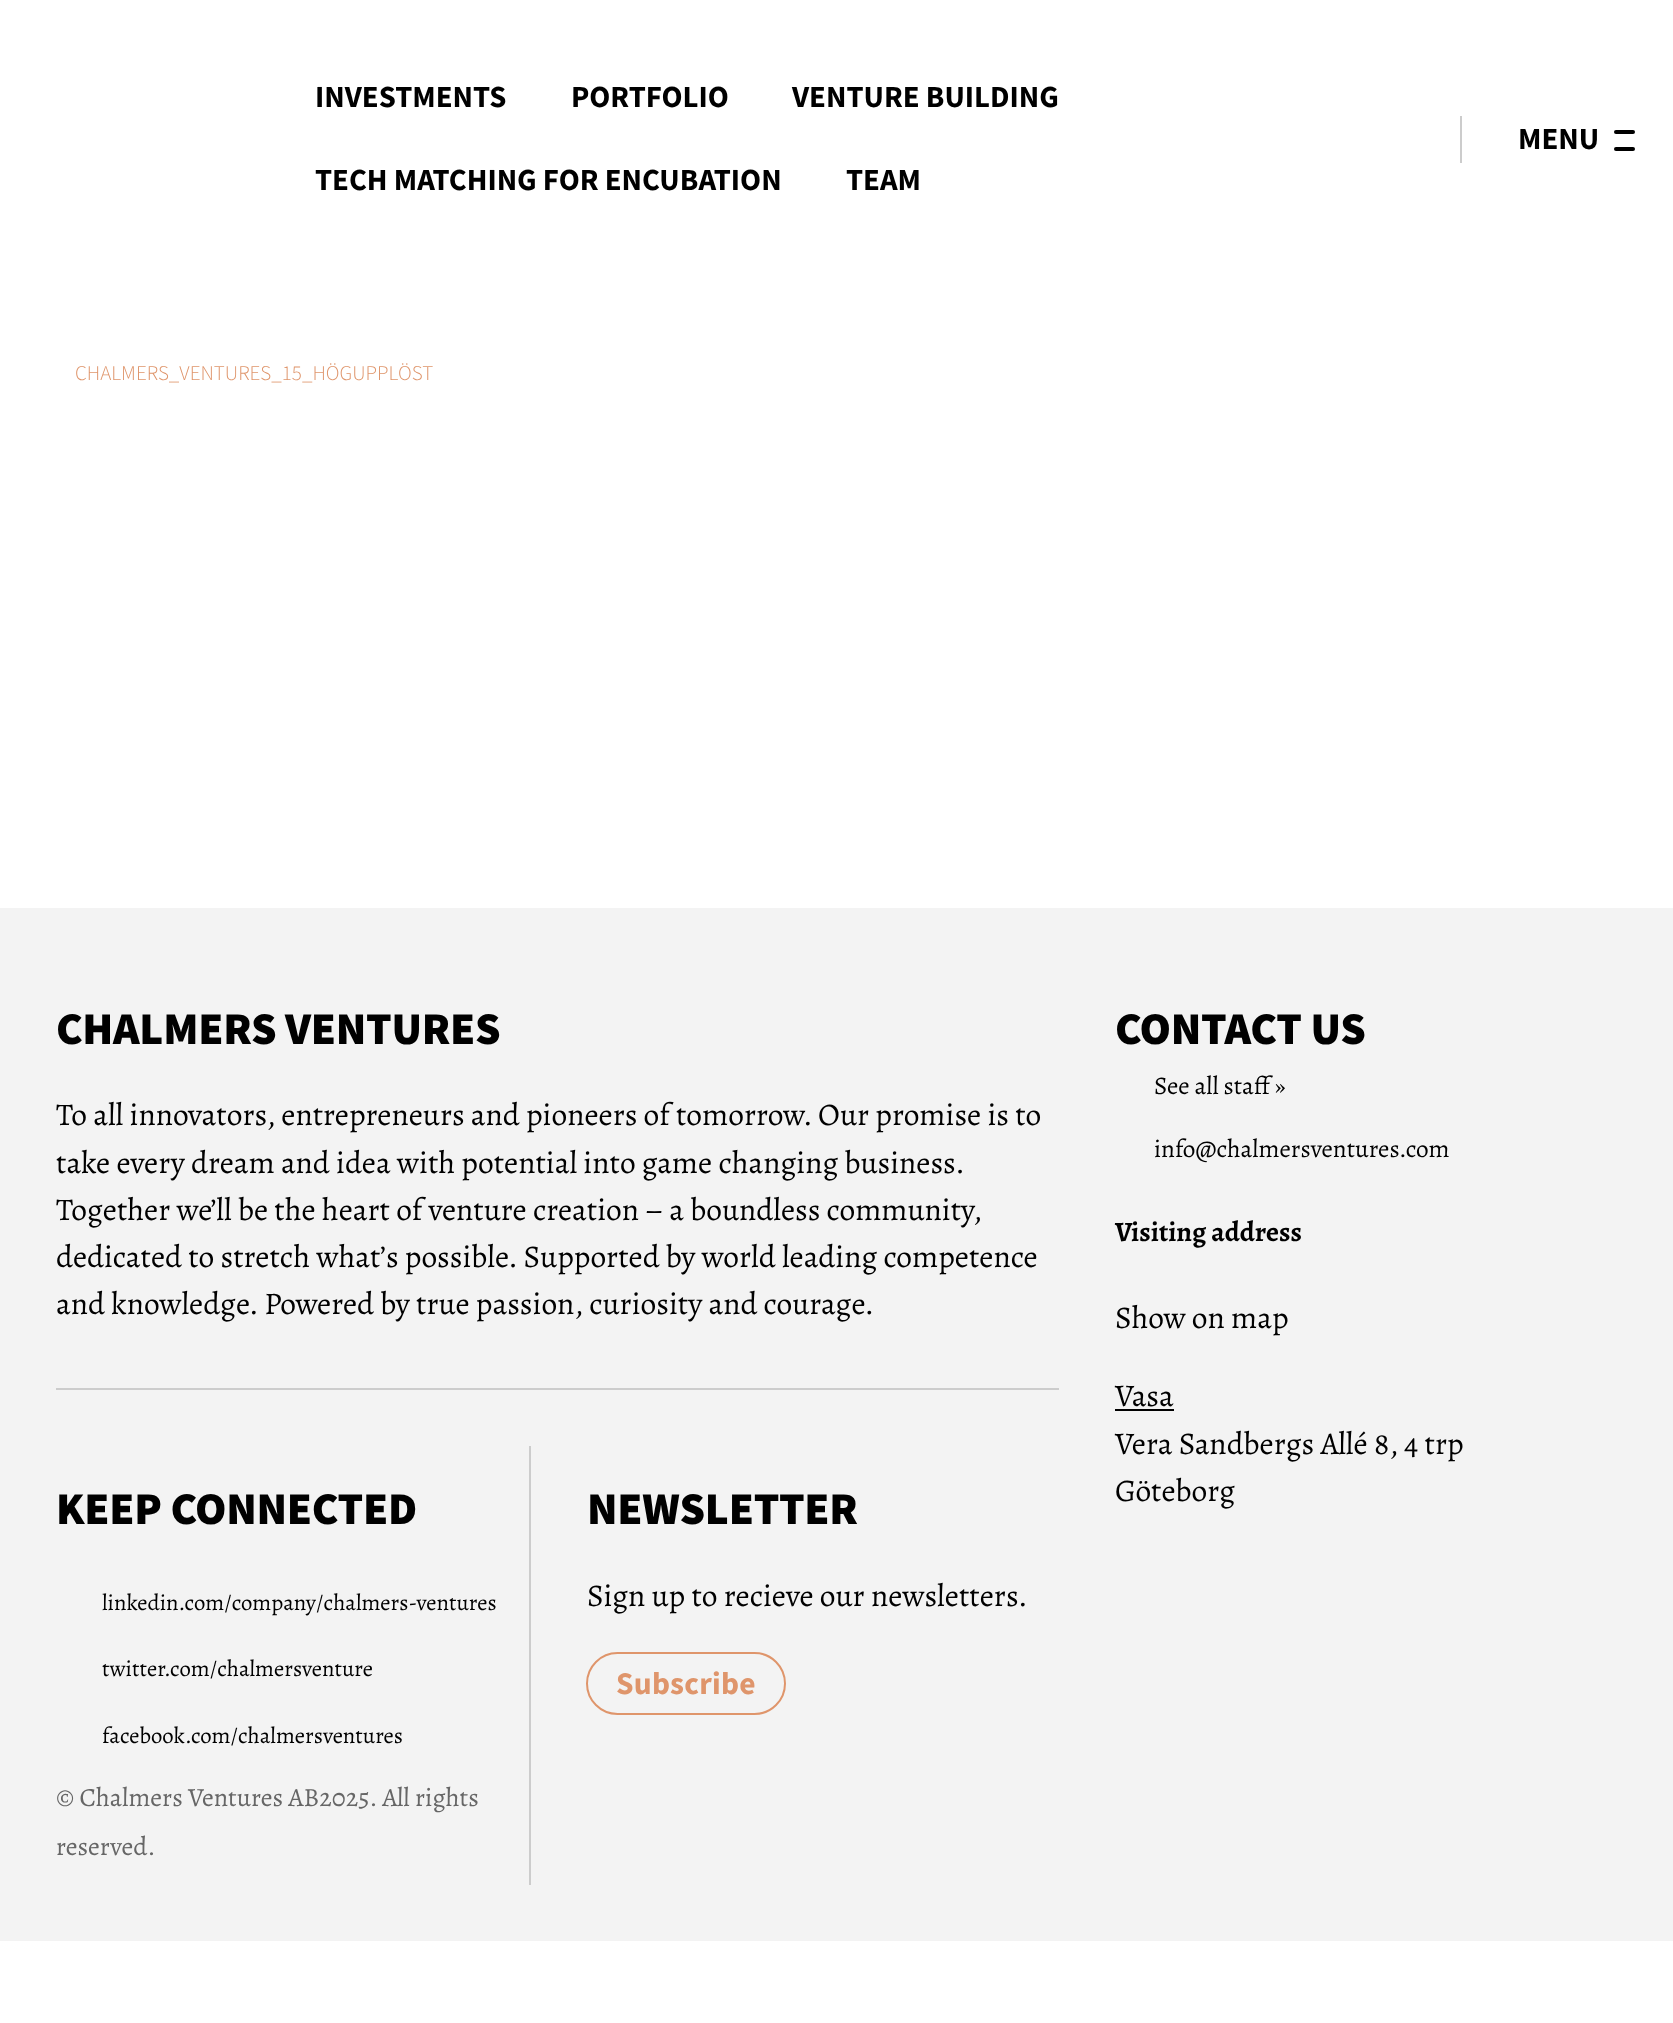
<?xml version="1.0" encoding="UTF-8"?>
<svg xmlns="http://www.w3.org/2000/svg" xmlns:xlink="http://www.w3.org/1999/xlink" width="1673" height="2023">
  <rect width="100%" height="100%" fill="#ffffff" />
  <rect x="1460" y="116" width="2" height="47" fill="#cccccc" />
  <rect x="1614" y="130" width="21" height="4" rx="2" fill="#000000" />
  <rect x="1614" y="147" width="21" height="4" rx="2" fill="#000000" />
  <rect y="908" width="1673" height="1033" fill="#f3f3f3" />
  <rect x="56" y="1388" width="1003" height="2" fill="#cccccc" />
  <rect x="529" y="1446" width="2" height="439" fill="#cccccc" />
  <rect x="587" y="1653" width="198" height="61" rx="30.5" fill="none" stroke="#df956b" stroke-width="2" />
  <rect x="1115" y="1409" width="59" height="2" fill="#000000" />
  <text x="315" y="107" style="font-family: Source Sans Pro; font-size: 30.75px; font-weight: bold; fill: #000000">INVESTMENTS</text>
  <text x="571" y="107" style="font-family: Source Sans Pro; font-size: 30.75px; font-weight: bold; fill: #000000">PORTFOLIO</text>
  <text x="792" y="107" style="font-family: Source Sans Pro; font-size: 30.75px; font-weight: bold; fill: #000000">VENTURE BUILDING</text>
  <text x="315" y="190" style="font-family: Source Sans Pro; font-size: 30.75px; font-weight: bold; fill: #000000">TECH MATCHING FOR ENCUBATION</text>
  <text x="846" y="190" style="font-family: Source Sans Pro; font-size: 30.75px; font-weight: bold; fill: #000000">TEAM</text>
  <text x="1518" y="149" style="font-family: Source Sans Pro; font-size: 30.75px; font-weight: bold; fill: #000000">MENU</text>
  <text x="75" y="380" style="font-family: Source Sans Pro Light; font-size: 21px; font-weight: 300; fill: #df956b">CHALMERS_VENTURES_15_HÖGUPPLÖST</text>
  <text x="56" y="1044" style="font-family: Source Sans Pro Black; font-size: 45.5px; font-weight: 900; letter-spacing: -0.3px; fill: #000000">CHALMERS VENTURES</text>
  <text x="56" y="1125" style="font-family: Alegreya; font-size: 31.5px; fill: #000000">To all innovators, entrepreneurs and pioneers of tomorrow. Our promise is to</text>
  <text x="56" y="1173" style="font-family: Alegreya; font-size: 31.5px; fill: #000000">take every dream and idea with potential into game changing business.</text>
  <text x="56" y="1220" style="font-family: Alegreya; font-size: 31.5px; fill: #000000">Together we’ll be the heart of venture creation – a boundless community,</text>
  <text x="56" y="1267" style="font-family: Alegreya; font-size: 31.5px; fill: #000000">dedicated to stretch what’s possible. Supported by world leading competence</text>
  <text x="56" y="1314" style="font-family: Alegreya; font-size: 31.5px; fill: #000000">and knowledge. Powered by true passion, curiosity and courage.</text>
  <text x="56" y="1524" style="font-family: Source Sans Pro Black; font-size: 45.5px; font-weight: 900; letter-spacing: -0.3px; fill: #000000">KEEP CONNECTED</text>
  <text x="102" y="1610" style="font-family: Alegreya; font-size: 22.75px; fill: #000000">linkedin.com/company/chalmers-ventures</text>
  <text x="102" y="1676" style="font-family: Alegreya; font-size: 22.75px; fill: #000000">twitter.com/chalmersventure</text>
  <text x="102" y="1743" style="font-family: Alegreya; font-size: 22.75px; fill: #000000">facebook.com/chalmersventures</text>
  <text x="56" y="1806" style="font-family: Alegreya; font-size: 26.25px; fill: #666666">© Chalmers Ventures AB2025. All rights</text>
  <text x="56" y="1855" style="font-family: Alegreya; font-size: 26.25px; fill: #666666">reserved.</text>
  <text x="587" y="1524" style="font-family: Source Sans Pro Black; font-size: 45.5px; font-weight: 900; letter-spacing: -0.3px; fill: #000000">NEWSLETTER</text>
  <text x="587" y="1606" style="font-family: Alegreya; font-size: 31.5px; fill: #000000">Sign up to recieve our newsletters.</text>
  <text x="616" y="1694" style="font-family: Source Sans Pro; font-size: 31.5px; font-weight: bold; letter-spacing: 0.25px; fill: #df956b">Subscribe</text>
  <text x="1115" y="1044" style="font-family: Source Sans Pro Black; font-size: 45.5px; font-weight: 900; letter-spacing: -0.3px; fill: #000000">CONTACT US</text>
  <text x="1154" y="1094" style="font-family: Alegreya; font-size: 25.25px; fill: #000000">See all staff »</text>
  <text x="1154" y="1157" style="font-family: Alegreya; font-size: 25.25px; fill: #000000">info@chalmersventures.com</text>
  <text x="1115" y="1241" style="font-family: Alegreya; font-size: 28px; font-weight: bold; fill: #000000">Visiting address</text>
  <text x="1115" y="1328" style="font-family: Alegreya; font-size: 31.5px; fill: #000000">Show on map</text>
  <text x="1115" y="1406" style="font-family: Alegreya; font-size: 31.5px; fill: #000000">Vasa</text>
  <text x="1115" y="1454" style="font-family: Alegreya; font-size: 31.5px; fill: #000000">Vera Sandbergs Allé 8, 4 trp</text>
  <text x="1115" y="1501" style="font-family: Alegreya; font-size: 31.5px; fill: #000000">Göteborg</text>
</svg>
